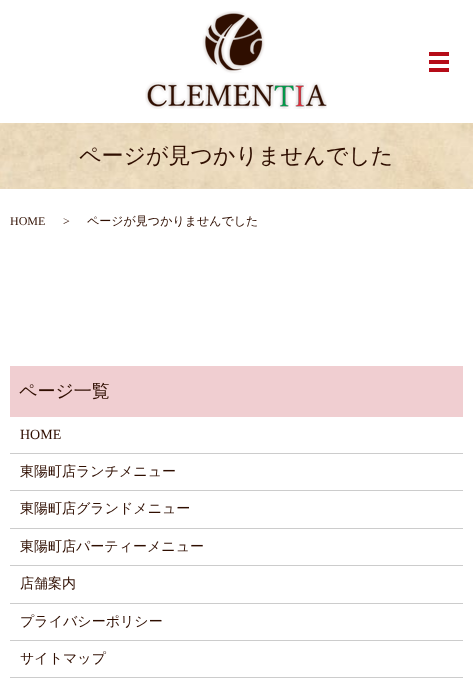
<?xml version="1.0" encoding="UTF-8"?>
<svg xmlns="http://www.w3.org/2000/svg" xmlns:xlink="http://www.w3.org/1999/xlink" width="473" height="689">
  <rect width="100%" height="100%" fill="#ffffff" />
  <image x="145" y="11" width="182" height="98" xlink:href="image1.png" />
  <rect x="429" y="52" width="20" height="4" fill="#b50c18" />
  <rect x="429" y="60" width="20" height="4" fill="#b50c18" />
  <rect x="429" y="68" width="20" height="4" fill="#b50c18" />
  <image x="0" y="123" width="473" height="66" xlink:href="image2.png" />
  <rect x="10" y="366" width="453" height="51" fill="#f0ced1" />
  <rect x="10" y="453" width="453" height="1" fill="#cccccc" />
  <rect x="10" y="490" width="453" height="1" fill="#cccccc" />
  <rect x="10" y="528" width="453" height="1" fill="#cccccc" />
  <rect x="10" y="565" width="453" height="1" fill="#cccccc" />
  <rect x="10" y="603" width="453" height="1" fill="#cccccc" />
  <rect x="10" y="640" width="453" height="1" fill="#cccccc" />
  <rect x="10" y="677" width="453" height="1" fill="#cccccc" />
  <text x="79" y="163" style="font-family: WenQuanYi Zen Hei; font-size: 22px; font-weight: 500; fill: #2f0e00">ページが見つかりませんでした</text>
  <text x="10" y="225" style="font-family: Liberation Serif; font-size: 12px; fill: #2f0e00">HOME</text>
  <text x="63" y="225" style="font-family: Liberation Serif; font-size: 12px; fill: #2f0e00">&gt;</text>
  <text x="87" y="225" style="font-family: WenQuanYi Zen Hei; font-size: 12px; font-weight: 500; fill: #2f0e00">ページが見つかりませんでした</text>
  <text x="19" y="397" style="font-family: WenQuanYi Zen Hei; font-size: 18px; font-weight: 500; fill: #2f0e00">ページ一覧</text>
  <text x="20" y="439" style="font-family: Liberation Serif; font-size: 14px; fill: #2f0e00">HOME</text>
  <text x="20" y="476" style="font-family: WenQuanYi Zen Hei; font-size: 14px; font-weight: 500; fill: #2f0e00">東陽町店ランチメニュー</text>
  <text x="20" y="513" style="font-family: WenQuanYi Zen Hei; font-size: 14px; font-weight: 500; fill: #2f0e00">東陽町店グランドメニュー</text>
  <text x="20" y="551" style="font-family: WenQuanYi Zen Hei; font-size: 14px; font-weight: 500; fill: #2f0e00">東陽町店パーティーメニュー</text>
  <text x="20" y="588" style="font-family: WenQuanYi Zen Hei; font-size: 14px; font-weight: 500; fill: #2f0e00">店舗案内</text>
  <text x="20" y="626" style="font-family: WenQuanYi Zen Hei; font-size: 14px; font-weight: 500; fill: #2f0e00">プライバシーポリシー</text>
  <text x="20" y="663" style="font-family: WenQuanYi Zen Hei; font-size: 14px; font-weight: 500; fill: #2f0e00">サイトマップ</text>
</svg>
